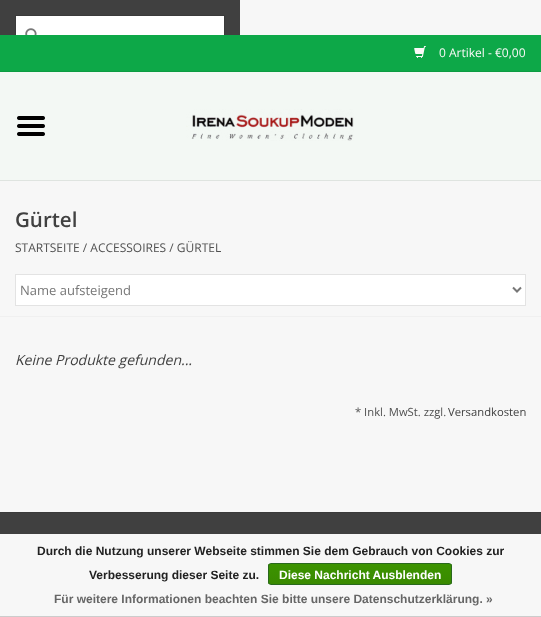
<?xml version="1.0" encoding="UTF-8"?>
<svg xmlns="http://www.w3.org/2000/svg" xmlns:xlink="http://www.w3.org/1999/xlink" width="541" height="617">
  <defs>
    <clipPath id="clip1"><rect x="268" y="563" width="184" height="22" rx="3" /></clipPath>
    <linearGradient id="g1" gradientUnits="userSpaceOnUse" x1="360" y1="564" x2="360" y2="584"><stop offset="0" stop-color="#3c9300" /><stop offset="1" stop-color="#398a00" /></linearGradient>
  </defs>
  <rect width="100%" height="100%" fill="#f7f7f7" />
  <rect width="240" height="35" fill="#404040" />
  <rect x="16" y="16" width="208" height="19" fill="#ffffff" />
  <rect x="15.5" y="15.5" width="209" height="39" fill="none" stroke="#3a3a3a" />
  <image x="25" y="28" width="12" height="7" xlink:href="image1.png" />
  <rect y="72" width="541" height="108" fill="#f3f8f4" />
  <rect y="180" width="541" height="1" fill="#dfe4e0" />
  <image x="186" y="109" width="168" height="32" xlink:href="image2.png" />
  <image x="17" y="116" width="28" height="20" xlink:href="image3.png" />
  <rect y="35" width="541" height="36" fill="#0da848" />
  <rect y="71" width="541" height="1" fill="#0c9c42" />
  <image x="414" y="46" width="12" height="12" xlink:href="image4.png" />
  <rect y="316" width="541" height="1" fill="#f0f0f0" />
  <rect x="15.5" y="274.5" width="510" height="31" fill="#ffffff" stroke="#e3e3e3" />
  <path d="M 513 287.5 l 4 4 l 4 -4" fill="none" stroke="#777777" stroke-width="2" />
  <rect y="513" width="541" height="21" fill="#404040" />
  <rect y="512" width="541" height="1" fill="#3b3b3b" />
  <rect y="616" width="541" height="1" fill="#cccccc" />
  <g clip-path="url(#clip1)">
    <rect x="268" y="564" width="184" height="20" fill="url(#g1)" />
  </g>
  <rect x="268.5" y="563.5" width="183" height="21" rx="2.5" fill="none" stroke="#29691d" />
  <text x="439" y="57" style="font-family: Open Sans; font-size: 12px; fill: #fcf9f9">0 Artikel - €0,00</text>
  <text x="15" y="227" style="font-family: Open Sans; font-size: 20.5px; font-weight: 600; fill: #414141">Gürtel</text>
  <text x="15" y="252" style="font-family: Open Sans; font-size: 12px; fill: #505050">STARTSEITE / ACCESSOIRES / GÜRTEL</text>
  <text x="20" y="295" style="font-family: Open Sans; font-size: 13px; fill: #777777">Name aufsteigend</text>
  <text x="15" y="365" style="font-family: Open Sans; font-size: 14px; font-style: italic; fill: #414141">Keine Produkte gefunden...</text>
  <text x="355" y="416" style="font-family: Open Sans; font-size: 11.25px; fill: #505050">* Inkl. MwSt. zzgl.</text>
  <text x="448" y="416" style="font-family: Open Sans; font-size: 11.25px; fill: #414141">Versandkosten</text>
  <text x="37" y="555" style="font-family: Liberation Sans; font-size: 12px; font-weight: bold; fill: #222222">Durch die Nutzung unserer Webseite stimmen Sie dem Gebrauch von Cookies zur</text>
  <text x="89" y="579" style="font-family: Liberation Sans; font-size: 12px; font-weight: bold; fill: #222222">Verbesserung dieser Seite zu.</text>
  <text x="279" y="579" style="font-family: Liberation Sans; font-size: 12px; font-weight: bold; fill: #ffffff">Diese Nachricht Ausblenden</text>
  <text x="54" y="603" style="font-family: Liberation Sans; font-size: 12px; font-weight: bold; fill: #666666">Für weitere Informationen beachten Sie bitte unsere Datenschutzerklärung. »</text>
</svg>
